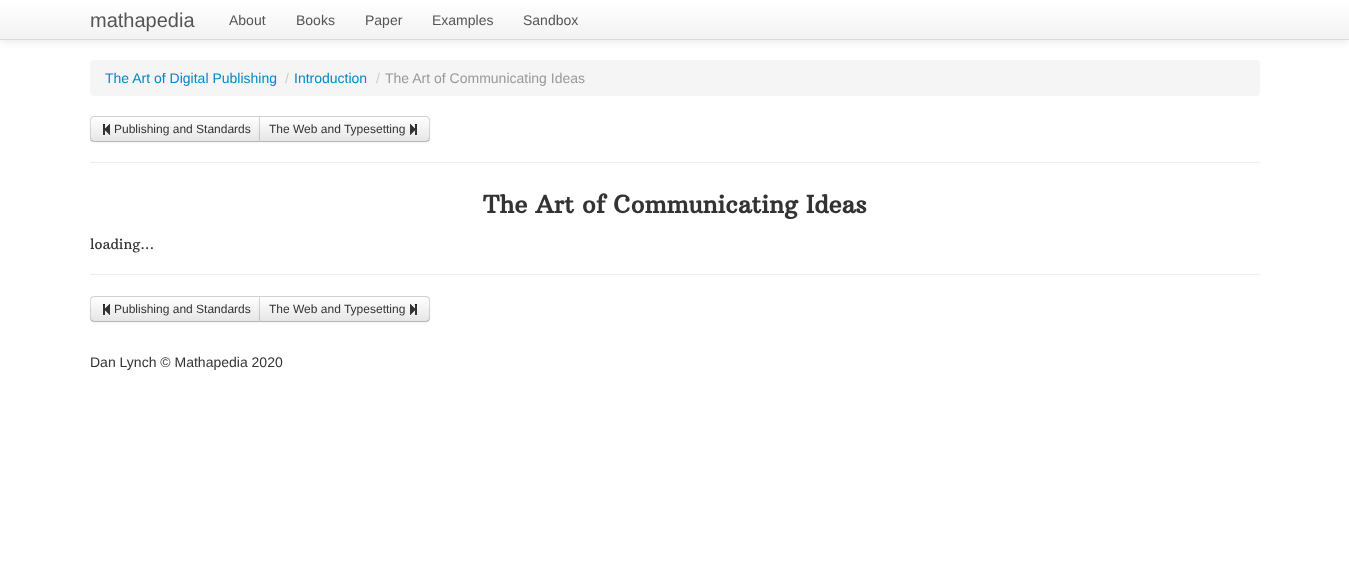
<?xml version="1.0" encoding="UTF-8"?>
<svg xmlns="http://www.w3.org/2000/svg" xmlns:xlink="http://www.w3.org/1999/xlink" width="1349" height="588">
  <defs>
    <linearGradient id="g1" gradientUnits="userSpaceOnUse" x1="675" y1="0" x2="675" y2="40"><stop offset="0" stop-color="#ffffff" /><stop offset="1" stop-color="#f2f2f2" /></linearGradient>
    <clipPath id="clip1"><path d="M 94 116 h 166 v 26 h -166 c -2 0 -4 -2 -4 -4 v -18 c 0 -2 2 -4 4 -4 z" /></clipPath>
    <linearGradient id="g2" gradientUnits="userSpaceOnUse" x1="175" y1="117" x2="175" y2="141"><stop offset="0" stop-color="#ffffff" /><stop offset="1" stop-color="#e6e6e6" /></linearGradient>
    <clipPath id="clip2"><path d="M 259 116 h 167 c 2 0 4 2 4 4 v 18 c 0 2 -2 4 -4 4 h -167 z" /></clipPath>
    <linearGradient id="g3" gradientUnits="userSpaceOnUse" x1="345" y1="117" x2="345" y2="141"><stop offset="0" stop-color="#ffffff" /><stop offset="1" stop-color="#e6e6e6" /></linearGradient>
    <clipPath id="clip3"><path d="M 94 296 h 166 v 26 h -166 c -2 0 -4 -2 -4 -4 v -18 c 0 -2 2 -4 4 -4 z" /></clipPath>
    <linearGradient id="g4" gradientUnits="userSpaceOnUse" x1="175" y1="297" x2="175" y2="321"><stop offset="0" stop-color="#ffffff" /><stop offset="1" stop-color="#e6e6e6" /></linearGradient>
    <clipPath id="clip4"><path d="M 259 296 h 167 c 2 0 4 2 4 4 v 18 c 0 2 -2 4 -4 4 h -167 z" /></clipPath>
    <linearGradient id="g5" gradientUnits="userSpaceOnUse" x1="345" y1="297" x2="345" y2="321"><stop offset="0" stop-color="#ffffff" /><stop offset="1" stop-color="#e6e6e6" /></linearGradient>
  </defs>
  <rect width="100%" height="100%" fill="#ffffff" />
  <rect y="1" width="1349" height="40" fill="#000000" fill-opacity="0.1" filter="blur(5px)" />
  <rect width="1349" height="39" fill="url(#g1)" />
  <rect y="39" width="1349" height="1" fill="#dadada" />
  <rect x="90" y="60" width="1170" height="36" rx="4" fill="#f5f5f5" />
  <rect x="90" y="117" width="170" height="26" rx="4" fill="#000000" fill-opacity="0.05" filter="blur(1px)" />
  <path d="M 94 116 h 166 v 26 h -166 c -2 0 -4 -2 -4 -4 v -18 c 0 -2 2 -4 4 -4 z" fill="#f5f5f5" />
  <g clip-path="url(#clip1)">
    <rect x="90" y="117" width="169" height="24" fill="url(#g2)" />
  </g>
  <path d="M 94 116 l -3 1 l 1 1 l 2 -1 h 165 l 1 -1 z" fill="#000000" fill-opacity="0.15" />
  <path d="M 260 142 l -1 -1 h -165 l -2 -1 l -1 1 l 3 1 z" fill="#000000" fill-opacity="0.25" />
  <path d="M 90 120 v 18 c 0 1 0.5 2 1 3 l 1 -1 c -2 -1.5 -1 -9 -1 -11 c 0 -2 -1 -9.5 1 -11 l -1 -1 c -0.5 1 -1 2 -1 3 z" fill="#000000" fill-opacity="0.15" />
  <image x="103" y="124" width="7" height="12" xlink:href="image1.png" />
  <rect x="259" y="117" width="171" height="26" rx="4" fill="#000000" fill-opacity="0.05" filter="blur(1px)" />
  <path d="M 259 116 h 167 c 2 0 4 2 4 4 v 18 c 0 2 -2 4 -4 4 h -167 z" fill="#f5f5f5" />
  <g clip-path="url(#clip2)">
    <rect x="259" y="117" width="171" height="24" fill="url(#g3)" />
  </g>
  <path d="M 259 116 l 1 1 h 166 l 2 1 l 1 -1 l -3 -1 z" fill="#000000" fill-opacity="0.15" />
  <path d="M 430 138 v -18 c 0 -1 -0.5 -2 -1 -3 l -1 1 c 2 1.5 1 9 1 11 c 0 2 1 9.5 -1 11 l 1 1 c 0.5 -1 1 -2 1 -3 z" fill="#000000" fill-opacity="0.15" />
  <path d="M 426 142 l 3 -1 l -1 -1 l -2 1 h -166 l -1 1 z" fill="#000000" fill-opacity="0.25" />
  <path d="M 259 116 v 26 l 1 -1 v -24 z" fill="#000000" fill-opacity="0.15" />
  <image x="410" y="124" width="7" height="12" xlink:href="image2.png" />
  <rect x="90" y="162" width="1170" height="1" fill="#eeeeee" />
  <rect x="90" y="274" width="1170" height="1" fill="#eeeeee" />
  <rect x="90" y="297" width="170" height="26" rx="4" fill="#000000" fill-opacity="0.05" filter="blur(1px)" />
  <path d="M 94 296 h 166 v 26 h -166 c -2 0 -4 -2 -4 -4 v -18 c 0 -2 2 -4 4 -4 z" fill="#f5f5f5" />
  <g clip-path="url(#clip3)">
    <rect x="90" y="297" width="169" height="24" fill="url(#g4)" />
  </g>
  <path d="M 94 296 l -3 1 l 1 1 l 2 -1 h 165 l 1 -1 z" fill="#000000" fill-opacity="0.15" />
  <path d="M 260 322 l -1 -1 h -165 l -2 -1 l -1 1 l 3 1 z" fill="#000000" fill-opacity="0.25" />
  <path d="M 90 300 v 18 c 0 1 0.5 2 1 3 l 1 -1 c -2 -1.5 -1 -9 -1 -11 c 0 -2 -1 -9.5 1 -11 l -1 -1 c -0.5 1 -1 2 -1 3 z" fill="#000000" fill-opacity="0.15" />
  <image x="103" y="304" width="7" height="12" xlink:href="image1.png" />
  <rect x="259" y="297" width="171" height="26" rx="4" fill="#000000" fill-opacity="0.05" filter="blur(1px)" />
  <path d="M 259 296 h 167 c 2 0 4 2 4 4 v 18 c 0 2 -2 4 -4 4 h -167 z" fill="#f5f5f5" />
  <g clip-path="url(#clip4)">
    <rect x="259" y="297" width="171" height="24" fill="url(#g5)" />
  </g>
  <path d="M 259 296 l 1 1 h 166 l 2 1 l 1 -1 l -3 -1 z" fill="#000000" fill-opacity="0.15" />
  <path d="M 430 318 v -18 c 0 -1 -0.5 -2 -1 -3 l -1 1 c 2 1.5 1 9 1 11 c 0 2 1 9.5 -1 11 l 1 1 c 0.5 -1 1 -2 1 -3 z" fill="#000000" fill-opacity="0.15" />
  <path d="M 426 322 l 3 -1 l -1 -1 l -2 1 h -166 l -1 1 z" fill="#000000" fill-opacity="0.25" />
  <path d="M 259 296 v 26 l 1 -1 v -24 z" fill="#000000" fill-opacity="0.15" />
  <image x="410" y="304" width="7" height="12" xlink:href="image2.png" />
  <text x="90" y="27" style="font-family: Liberation Sans; font-size: 20px; fill: #555555">mathapedia</text>
  <text x="229" y="25" style="font-family: Liberation Sans; font-size: 14px; fill: #555555">About</text>
  <text x="296" y="25" style="font-family: Liberation Sans; font-size: 14px; fill: #555555">Books</text>
  <text x="365" y="25" style="font-family: Liberation Sans; font-size: 14px; fill: #555555">Paper</text>
  <text x="432" y="25" style="font-family: Liberation Sans; font-size: 14px; fill: #555555">Examples</text>
  <text x="523" y="25" style="font-family: Liberation Sans; font-size: 14px; fill: #555555">Sandbox</text>
  <text x="105" y="83" style="font-family: Liberation Sans; font-size: 14px; fill: #0088cc">The Art of Digital Publishing</text>
  <text x="285" y="83" style="font-family: Liberation Sans; font-size: 14px; fill: #cccccc">/</text>
  <text x="294" y="83" style="font-family: Liberation Sans; font-size: 14px; fill: #0088cc">Introduction</text>
  <text x="376" y="83" style="font-family: Liberation Sans; font-size: 14px; fill: #cccccc">/</text>
  <text x="385" y="83" style="font-family: Liberation Sans; font-size: 14px; fill: #999999">The Art of Communicating Ideas</text>
  <text x="114" y="133" style="font-family: Liberation Sans; font-size: 12px; fill: #333333">Publishing and Standards</text>
  <text x="269" y="133" style="font-family: Liberation Sans; font-size: 12px; fill: #333333">The Web and Typesetting</text>
  <text x="483" y="213" style="font-family: Arbutus Slab; font-size: 24px; font-weight: bold; fill: #333333">The Art of Communicating Ideas</text>
  <text x="90" y="249" style="font-family: Arbutus Slab; font-size: 14px; fill: #333333">loading...</text>
  <text x="114" y="313" style="font-family: Liberation Sans; font-size: 12px; fill: #333333">Publishing and Standards</text>
  <text x="269" y="313" style="font-family: Liberation Sans; font-size: 12px; fill: #333333">The Web and Typesetting</text>
  <text x="90" y="367" style="font-family: Liberation Sans; font-size: 14px; fill: #333333">Dan Lynch © Mathapedia 2020</text>
</svg>
